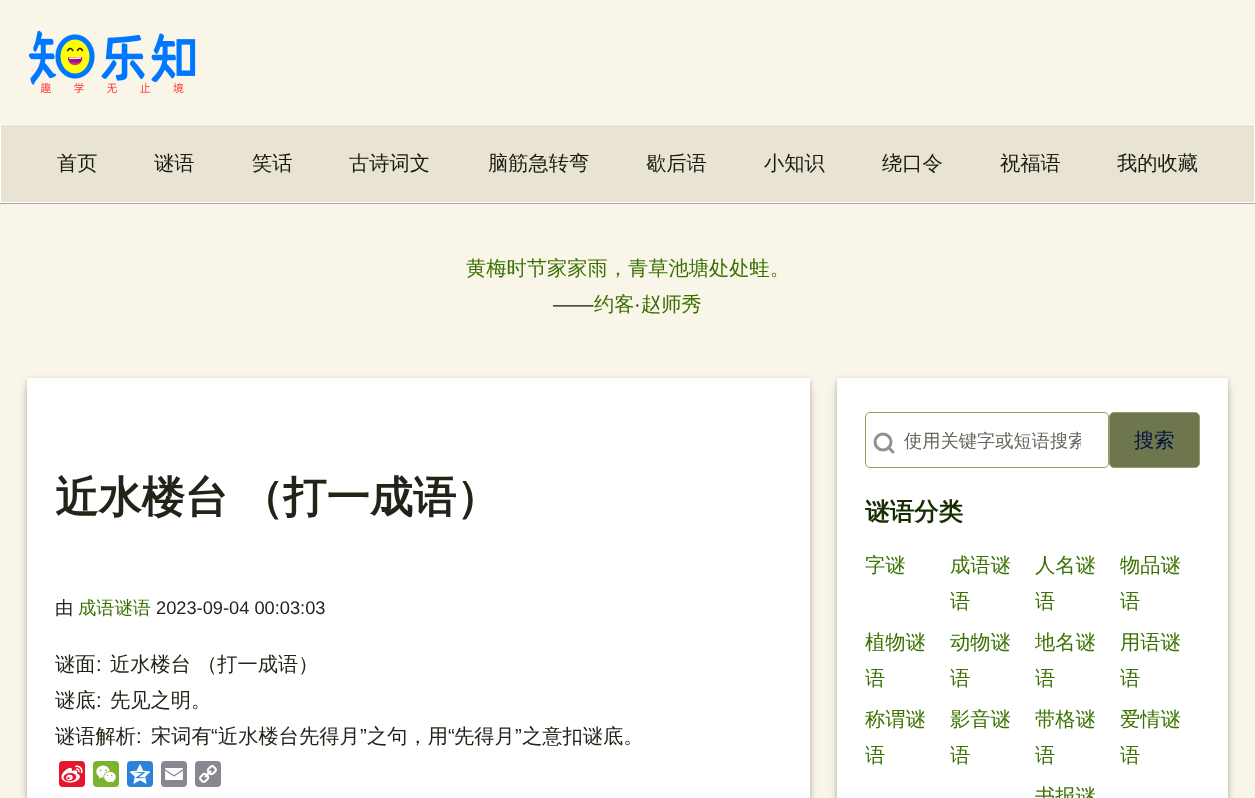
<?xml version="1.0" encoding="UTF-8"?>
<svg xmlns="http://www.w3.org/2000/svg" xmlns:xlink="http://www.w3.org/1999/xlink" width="1255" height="798">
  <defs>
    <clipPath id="clip1"><rect x="904" y="428" width="177" height="25" /></clipPath>
  </defs>
  <rect width="100%" height="100%" fill="#f9f5e9" />
  <image x="28" y="30" width="168" height="64" xlink:href="image1.png" />
  <rect y="125" width="1255" height="79" fill="#000000" fill-opacity="0.2" filter="blur(0.5px)" />
  <rect y="125" width="1255" height="79" fill="#000000" fill-opacity="0.14" filter="blur(0.5px)" />
  <rect x="0.5" y="124.5" width="1254" height="78" fill="#e8e3d2" stroke="#ffffff" />
  <rect x="27" y="379" width="783" height="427" fill="#000000" fill-opacity="0.2" filter="blur(2.5px)" />
  <rect x="27" y="388" width="783" height="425" fill="#000000" fill-opacity="0.14" filter="blur(5px)" />
  <rect x="27" y="378" width="783" height="420" fill="#ffffff" />
  <rect x="59" y="761" width="26" height="26" rx="4" fill="#e6162d" />
  <image x="61" y="765" width="22" height="18" xlink:href="image2.png" />
  <rect x="93" y="761" width="26" height="26" rx="4" fill="#7bb32e" />
  <image x="96" y="765" width="20" height="18" xlink:href="image3.png" />
  <rect x="127" y="761" width="26" height="26" rx="4" fill="#2b82d9" />
  <image x="129" y="764" width="22" height="20" xlink:href="image4.png" />
  <rect x="161" y="761" width="26" height="26" rx="4" fill="#888990" />
  <image x="165" y="768" width="18" height="12" xlink:href="image5.png" />
  <rect x="195" y="761" width="26" height="26" rx="4" fill="#888990" />
  <image x="199" y="765" width="18" height="18" xlink:href="image6.png" />
  <rect x="837" y="379" width="391" height="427" fill="#000000" fill-opacity="0.2" filter="blur(2.5px)" />
  <rect x="837" y="388" width="391" height="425" fill="#000000" fill-opacity="0.14" filter="blur(5px)" />
  <rect x="837" y="378" width="391" height="420" fill="#ffffff" />
  <rect x="865.5" y="412.5" width="243" height="55" rx="4.5" fill="none" stroke="#939d6b" />
  <circle cx="883" cy="442" r="8" fill="none" stroke="#91928c" stroke-width="3" />
  <path d="M 893 452 l -4.5 -4.5" fill="none" stroke="#91928c" stroke-width="3" stroke-linecap="round" stroke-linejoin="round" />
  <rect x="1109.5" y="412.5" width="90" height="55" rx="4.5" fill="#6e764e" stroke="#939d6b" />
  <text x="57" y="170" style="font-family: WenQuanYi Zen Hei; font-size: 20.25px; font-weight: 500; fill: #181a11">首页</text>
  <text x="154" y="170" style="font-family: WenQuanYi Zen Hei; font-size: 20.25px; font-weight: 500; fill: #181a11">谜语</text>
  <text x="252" y="170" style="font-family: WenQuanYi Zen Hei; font-size: 20.25px; font-weight: 500; fill: #181a11">笑话</text>
  <text x="349" y="170" style="font-family: WenQuanYi Zen Hei; font-size: 20.25px; font-weight: 500; fill: #181a11">古诗词文</text>
  <text x="488" y="170" style="font-family: WenQuanYi Zen Hei; font-size: 20.25px; font-weight: 500; fill: #181a11">脑筋急转弯</text>
  <text x="646" y="170" style="font-family: WenQuanYi Zen Hei; font-size: 20.25px; font-weight: 500; fill: #181a11">歇后语</text>
  <text x="764" y="170" style="font-family: WenQuanYi Zen Hei; font-size: 20.25px; font-weight: 500; fill: #181a11">小知识</text>
  <text x="882" y="170" style="font-family: WenQuanYi Zen Hei; font-size: 20.25px; font-weight: 500; fill: #181a11">绕口令</text>
  <text x="1000" y="170" style="font-family: WenQuanYi Zen Hei; font-size: 20.25px; font-weight: 500; fill: #181a11">祝福语</text>
  <text x="1117" y="170" style="font-family: WenQuanYi Zen Hei; font-size: 20.25px; font-weight: 500; fill: #181a11">我的收藏</text>
  <text x="466" y="275" style="font-family: WenQuanYi Zen Hei; font-size: 20.25px; font-weight: 500; fill: #397100">黄梅时节家家雨，青草池塘处处蛙。</text>
  <text x="553" y="311" style="font-family: Liberation Sans; font-size: 20.25px; fill: #222418">——</text>
  <text x="594" y="311" style="font-family: WenQuanYi Zen Hei; font-size: 20.25px; font-weight: 500; fill: #397100">约客</text>
  <text x="634" y="311" style="font-family: Liberation Sans; font-size: 20.25px; fill: #222418">·</text>
  <text x="641" y="311" style="font-family: WenQuanYi Zen Hei; font-size: 20.25px; font-weight: 500; fill: #397100">赵师秀</text>
  <text x="55" y="512" word-spacing="-1" style="font-family: WenQuanYi Zen Hei; font-size: 43.25px; font-weight: bold; fill: #222418">近水楼台 （打一成语）</text>
  <text x="55" y="614" style="font-family: WenQuanYi Zen Hei; font-size: 18.25px; font-weight: 500; fill: #222418">由</text>
  <text x="78" y="614" style="font-family: WenQuanYi Zen Hei; font-size: 18.25px; font-weight: 500; fill: #397100">成语谜语</text>
  <text x="156" y="614" style="font-family: Liberation Sans; font-size: 18.25px; fill: #222418">2023-09-04 00:03:03</text>
  <text x="55" y="671" style="font-family: WenQuanYi Zen Hei; font-size: 20.25px; font-weight: 500; fill: #222418">谜面</text>
  <text x="96" y="671" style="font-family: Liberation Sans; font-size: 20.25px; fill: #222418">:</text>
  <text x="110" y="671" style="font-family: WenQuanYi Zen Hei; font-size: 20.25px; font-weight: 500; fill: #222418">近水楼台 （打一成语）</text>
  <text x="55" y="707" style="font-family: WenQuanYi Zen Hei; font-size: 20.25px; font-weight: 500; fill: #222418">谜底</text>
  <text x="96" y="707" style="font-family: Liberation Sans; font-size: 20.25px; fill: #222418">:</text>
  <text x="110" y="707" style="font-family: WenQuanYi Zen Hei; font-size: 20.25px; font-weight: 500; fill: #222418">先见之明。</text>
  <text x="55" y="743" style="font-family: WenQuanYi Zen Hei; font-size: 20.25px; font-weight: 500; fill: #222418">谜语解析</text>
  <text x="136" y="743" style="font-family: Liberation Sans; font-size: 20.25px; fill: #222418">:</text>
  <text x="151" y="743" style="font-family: WenQuanYi Zen Hei; font-size: 20.25px; font-weight: 500; fill: #222418">宋词有</text>
  <text x="211" y="743" style="font-family: Liberation Sans; font-size: 20.25px; fill: #222418">“</text>
  <text x="218" y="743" style="font-family: WenQuanYi Zen Hei; font-size: 20.25px; font-weight: 500; fill: #222418">近水楼台先得月</text>
  <text x="360" y="743" style="font-family: Liberation Sans; font-size: 20.25px; fill: #222418">”</text>
  <text x="367" y="743" style="font-family: WenQuanYi Zen Hei; font-size: 20.25px; font-weight: 500; fill: #222418">之句，用</text>
  <text x="448" y="743" style="font-family: Liberation Sans; font-size: 20.25px; fill: #222418">“</text>
  <text x="454" y="743" style="font-family: WenQuanYi Zen Hei; font-size: 20.25px; font-weight: 500; fill: #222418">先得月</text>
  <text x="515" y="743" style="font-family: Liberation Sans; font-size: 20.25px; fill: #222418">”</text>
  <text x="522" y="743" style="font-family: WenQuanYi Zen Hei; font-size: 20.25px; font-weight: 500; fill: #222418">之意扣谜底。</text>
  <g clip-path="url(#clip1)">
    <text x="904" y="447" style="font-family: WenQuanYi Zen Hei; font-size: 18.25px; font-weight: 500; fill: #64665d">使用关键字或短语搜索</text>
  </g>
  <text x="1134" y="447" style="font-family: WenQuanYi Zen Hei; font-size: 20.25px; font-weight: 500; fill: #03113f">搜索</text>
  <text x="865" y="520" style="font-family: WenQuanYi Zen Hei; font-size: 24.5px; font-weight: bold; fill: #172d00">谜语分类</text>
  <text x="865" y="572" style="font-family: WenQuanYi Zen Hei; font-size: 20.25px; font-weight: 500; fill: #397100">字谜</text>
  <text x="950" y="572" style="font-family: WenQuanYi Zen Hei; font-size: 20.25px; font-weight: 500; fill: #397100">成语谜</text>
  <text x="950" y="608" style="font-family: WenQuanYi Zen Hei; font-size: 20.25px; font-weight: 500; fill: #397100">语</text>
  <text x="1035" y="572" style="font-family: WenQuanYi Zen Hei; font-size: 20.25px; font-weight: 500; fill: #397100">人名谜</text>
  <text x="1035" y="608" style="font-family: WenQuanYi Zen Hei; font-size: 20.25px; font-weight: 500; fill: #397100">语</text>
  <text x="1120" y="572" style="font-family: WenQuanYi Zen Hei; font-size: 20.25px; font-weight: 500; fill: #397100">物品谜</text>
  <text x="1120" y="608" style="font-family: WenQuanYi Zen Hei; font-size: 20.25px; font-weight: 500; fill: #397100">语</text>
  <text x="865" y="649" style="font-family: WenQuanYi Zen Hei; font-size: 20.25px; font-weight: 500; fill: #397100">植物谜</text>
  <text x="865" y="685" style="font-family: WenQuanYi Zen Hei; font-size: 20.25px; font-weight: 500; fill: #397100">语</text>
  <text x="950" y="649" style="font-family: WenQuanYi Zen Hei; font-size: 20.25px; font-weight: 500; fill: #397100">动物谜</text>
  <text x="950" y="685" style="font-family: WenQuanYi Zen Hei; font-size: 20.25px; font-weight: 500; fill: #397100">语</text>
  <text x="1035" y="649" style="font-family: WenQuanYi Zen Hei; font-size: 20.25px; font-weight: 500; fill: #397100">地名谜</text>
  <text x="1035" y="685" style="font-family: WenQuanYi Zen Hei; font-size: 20.25px; font-weight: 500; fill: #397100">语</text>
  <text x="1120" y="649" style="font-family: WenQuanYi Zen Hei; font-size: 20.25px; font-weight: 500; fill: #397100">用语谜</text>
  <text x="1120" y="685" style="font-family: WenQuanYi Zen Hei; font-size: 20.25px; font-weight: 500; fill: #397100">语</text>
  <text x="865" y="726" style="font-family: WenQuanYi Zen Hei; font-size: 20.25px; font-weight: 500; fill: #397100">称谓谜</text>
  <text x="865" y="762" style="font-family: WenQuanYi Zen Hei; font-size: 20.25px; font-weight: 500; fill: #397100">语</text>
  <text x="950" y="726" style="font-family: WenQuanYi Zen Hei; font-size: 20.25px; font-weight: 500; fill: #397100">影音谜</text>
  <text x="950" y="762" style="font-family: WenQuanYi Zen Hei; font-size: 20.25px; font-weight: 500; fill: #397100">语</text>
  <text x="1035" y="726" style="font-family: WenQuanYi Zen Hei; font-size: 20.25px; font-weight: 500; fill: #397100">带格谜</text>
  <text x="1035" y="762" style="font-family: WenQuanYi Zen Hei; font-size: 20.25px; font-weight: 500; fill: #397100">语</text>
  <text x="1120" y="726" style="font-family: WenQuanYi Zen Hei; font-size: 20.25px; font-weight: 500; fill: #397100">爱情谜</text>
  <text x="1120" y="762" style="font-family: WenQuanYi Zen Hei; font-size: 20.25px; font-weight: 500; fill: #397100">语</text>
  <text x="1035" y="803" style="font-family: WenQuanYi Zen Hei; font-size: 20.25px; font-weight: 500; fill: #397100">书报谜</text>
</svg>
